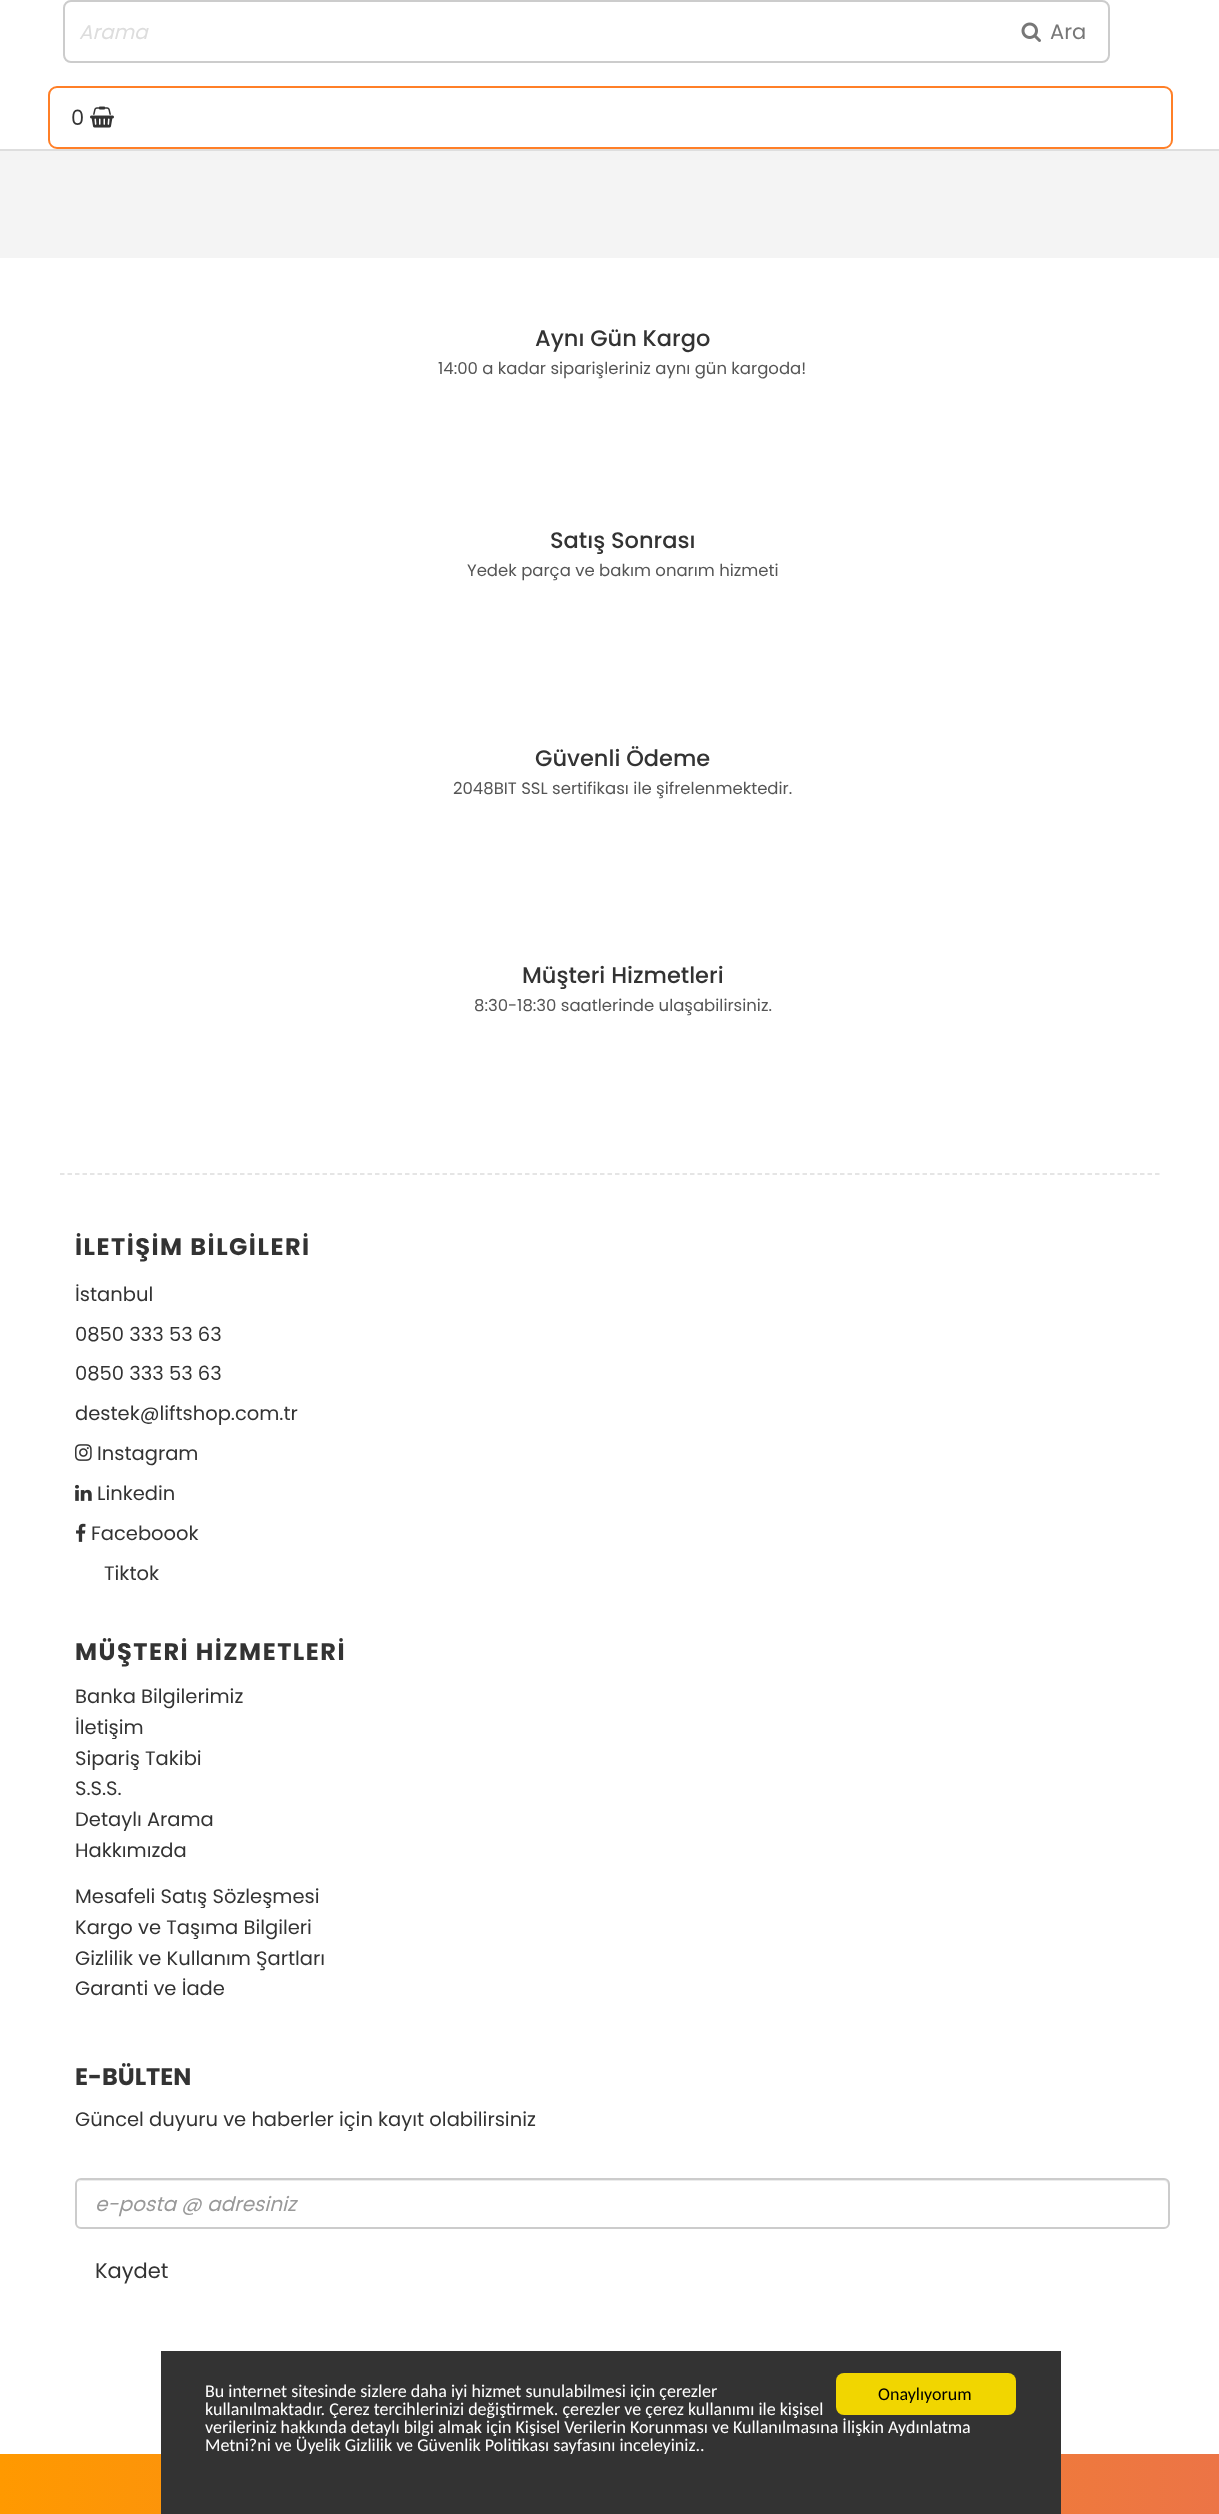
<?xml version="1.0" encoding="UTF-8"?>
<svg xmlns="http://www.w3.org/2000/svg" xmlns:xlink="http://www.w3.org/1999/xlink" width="1219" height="2514">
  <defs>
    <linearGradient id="g1" gradientUnits="userSpaceOnUse" x1="0" y1="2484" x2="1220" y2="2484"><stop offset="0" stop-color="#ff9900" /><stop offset="1" stop-color="#ec7446" /></linearGradient>
  </defs>
  <rect width="100%" height="100%" fill="#f4f4f4" />
  <rect width="1219" height="149" fill="#ffffff" />
  <rect y="149" width="1219" height="2" fill="#dedede" />
  <rect x="64" y="1" width="1045" height="61" rx="7" fill="none" stroke="#cccccc" stroke-width="2" />
  <image x="1021" y="22" width="20" height="20" xlink:href="image1.png" />
  <rect x="49" y="87" width="1123" height="61" rx="8" fill="none" stroke="#ff7f27" stroke-width="2" />
  <image x="90" y="106" width="24" height="22" xlink:href="image2.png" />
  <rect y="258" width="1219" height="2196" fill="#ffffff" />
  <path d="M 60 1174 h 1099.5" fill="none" stroke="#dddddd" stroke-width="1.5" stroke-dasharray="4.5 3" />
  <image x="75" y="1444" width="17" height="17" xlink:href="image3.png" />
  <image x="75" y="1484" width="17" height="17" xlink:href="image4.png" />
  <image x="76" y="1523" width="10" height="19" xlink:href="image5.png" />
  <path d="M 81 2181 h 1083 c 2 0 4 2 4 5 v 38 l -1 3 c 1 -1 2 -3 2 -4 v -38 c 0 -3 -2 -5 -5 -5 h -1082 c -2 0 -3 1 -4 2 z" fill="#ececec" />
  <rect x="76" y="2179" width="1093" height="49" rx="5" fill="none" stroke="#cccccc" stroke-width="2" />
  <rect y="2454" width="1219" height="60" fill="url(#g1)" />
  <rect x="161" y="2351" width="900" height="163" fill="#333333" />
  <rect x="836" y="2373" width="180" height="42" rx="8" fill="#f1d600" />
  <text x="79" y="39" style="font-family: Poppins; font-size: 20px; font-style: italic; fill: #dddddd">Arama</text>
  <text x="1050" y="39" style="font-family: Poppins; font-size: 21px; fill: #777777">Ara</text>
  <text x="71" y="125" style="font-family: Poppins; font-size: 21px; fill: #333333">0</text>
  <text x="535" y="346" style="font-family: Poppins; font-size: 22.5px; font-weight: 500; fill: #333333">Aynı Gün Kargo</text>
  <text x="438" y="374" style="font-family: Poppins; font-size: 16.5px; fill: #555555">14:00 a kadar siparişleriniz aynı gün kargoda!</text>
  <text x="550" y="548" style="font-family: Poppins; font-size: 22.5px; font-weight: 500; fill: #333333">Satış Sonrası</text>
  <text x="467" y="576" style="font-family: Poppins; font-size: 16.5px; fill: #555555">Yedek parça ve bakım onarım hizmeti</text>
  <text x="535" y="766" style="font-family: Poppins; font-size: 22.5px; font-weight: 500; fill: #333333">Güvenli Ödeme</text>
  <text x="453" y="794" style="font-family: Poppins; font-size: 16.5px; fill: #555555">2048BIT SSL sertifikası ile şifrelenmektedir.</text>
  <text x="522" y="983" style="font-family: Poppins; font-size: 22.5px; font-weight: 500; fill: #333333">Müşteri Hizmetleri</text>
  <text x="474" y="1011" style="font-family: Poppins; font-size: 16.5px; fill: #555555">8:30-18:30 saatlerinde ulaşabilirsiniz.</text>
  <text x="75" y="1255" style="font-family: Poppins; font-size: 24px; font-weight: bold; letter-spacing: 1.5px; fill: #333333">İLETİŞİM BİLGİLERİ</text>
  <text x="75" y="1301" style="font-family: Poppins; font-size: 19.5px; fill: #333333">İstanbul</text>
  <text x="75" y="1341" style="font-family: Poppins; font-size: 19.5px; fill: #333333">0850 333 53 63</text>
  <text x="75" y="1380" style="font-family: Poppins; font-size: 19.5px; fill: #333333">0850 333 53 63</text>
  <text x="75" y="1420" style="font-family: Poppins; font-size: 19.5px; fill: #333333">destek@liftshop.com.tr</text>
  <text x="97" y="1460" style="font-family: Poppins; font-size: 19.5px; fill: #333333">Instagram</text>
  <text x="97" y="1500" style="font-family: Poppins; font-size: 19.5px; fill: #333333">Linkedin</text>
  <text x="91" y="1540" style="font-family: Poppins; font-size: 19.5px; fill: #333333">Faceboook</text>
  <text x="104" y="1580" style="font-family: Poppins; font-size: 19.5px; fill: #333333">Tiktok</text>
  <text x="75" y="1660" style="font-family: Poppins; font-size: 24px; font-weight: bold; letter-spacing: 1.5px; fill: #333333">MÜŞTERİ HİZMETLERİ</text>
  <text x="75" y="1703" style="font-family: Poppins; font-size: 19.5px; fill: #333333">Banka Bilgilerimiz</text>
  <text x="75" y="1734" style="font-family: Poppins; font-size: 19.5px; fill: #333333">İletişim</text>
  <text x="75" y="1765" style="font-family: Poppins; font-size: 19.5px; fill: #333333">Sipariş Takibi</text>
  <text x="75" y="1795" style="font-family: Poppins; font-size: 19.5px; fill: #333333">S.S.S.</text>
  <text x="75" y="1826" style="font-family: Poppins; font-size: 19.5px; fill: #333333">Detaylı Arama</text>
  <text x="75" y="1857" style="font-family: Poppins; font-size: 19.5px; fill: #333333">Hakkımızda</text>
  <text x="75" y="1903" style="font-family: Poppins; font-size: 19.5px; fill: #333333">Mesafeli Satış Sözleşmesi</text>
  <text x="75" y="1934" style="font-family: Poppins; font-size: 19.5px; fill: #333333">Kargo ve Taşıma Bilgileri</text>
  <text x="75" y="1965" style="font-family: Poppins; font-size: 19.5px; fill: #333333">Gizlilik ve Kullanım Şartları</text>
  <text x="75" y="1995" style="font-family: Poppins; font-size: 19.5px; fill: #333333">Garanti ve İade</text>
  <text x="75" y="2085" style="font-family: Poppins; font-size: 24px; font-weight: bold; fill: #333333">E-BÜLTEN</text>
  <text x="75" y="2126" style="font-family: Poppins; font-size: 19.5px; fill: #333333">Güncel duyuru ve haberler için kayıt olabilirsiniz</text>
  <text x="95" y="2211" style="font-family: Poppins; font-size: 20px; font-style: italic; fill: #999999">e-posta @ adresiniz</text>
  <text x="95" y="2278" style="font-family: Poppins; font-size: 21px; fill: #333333">Kaydet</text>
  <text x="205" y="2397" style="font-family: Carlito; font-size: 18px; fill: #ffffff">Bu internet sitesinde sizlere daha iyi hizmet sunulabilmesi için çerezler</text>
  <text x="205" y="2415" style="font-family: Carlito; font-size: 18px; fill: #ffffff">kullanılmaktadır. Çerez tercihlerinizi değiştirmek. çerezler ve çerez kullanımı ile kişisel</text>
  <text x="205" y="2433" style="font-family: Carlito; font-size: 18px; fill: #ffffff">verileriniz hakkında detaylı bilgi almak için Kişisel Verilerin Korunması ve Kullanılmasına İlişkin Aydınlatma</text>
  <text x="205" y="2451" style="font-family: Carlito; font-size: 18px; fill: #ffffff">Metni?ni ve Üyelik Gizlilik ve Güvenlik Politikası sayfasını inceleyiniz..</text>
  <text x="878" y="2400" style="font-family: Carlito; font-size: 18px; fill: #000000">Onaylıyorum</text>
</svg>
